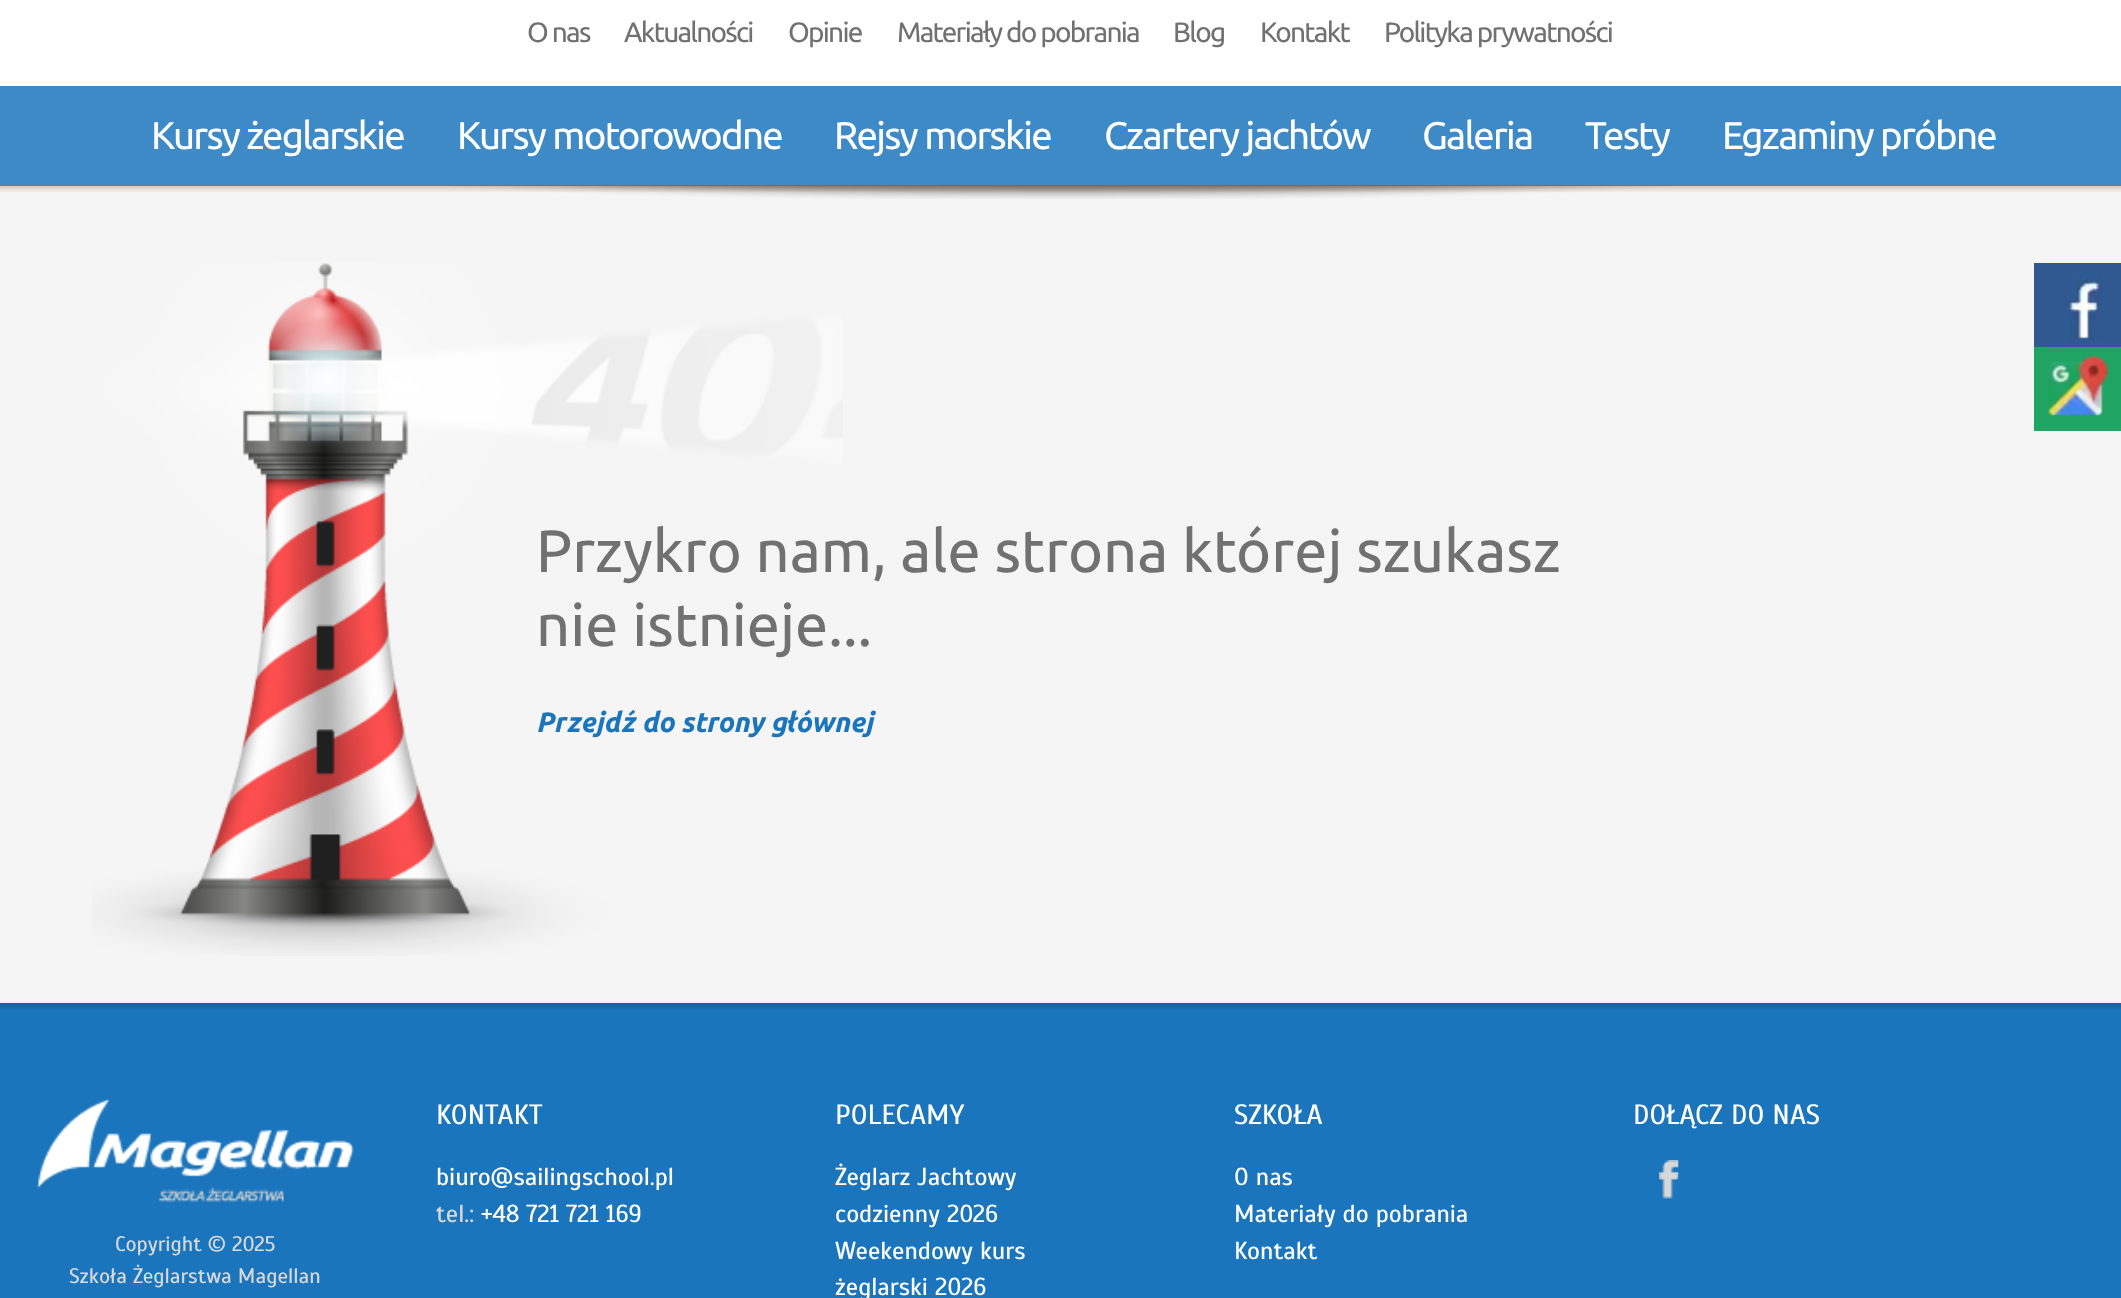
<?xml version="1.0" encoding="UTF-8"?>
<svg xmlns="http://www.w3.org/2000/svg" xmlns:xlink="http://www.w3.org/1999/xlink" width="2121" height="1298">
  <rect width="100%" height="100%" fill="#ffffff" />
  <rect y="186" width="2121" height="817" fill="#f5f5f5" />
  <image x="0" y="185" width="2121" height="7" xlink:href="image3.png" />
  <image x="451" y="185" width="1221" height="14" xlink:href="image4.png" />
  <rect y="86" width="2121" height="100" fill="#1b75bc" fill-opacity="0.85" />
  <rect x="2034" y="263" width="87" height="84" fill="#305891" />
  <image x="2068" y="271" width="35" height="68" xlink:href="image1.png" />
  <rect x="2034" y="347" width="87" height="84" fill="#20a464" />
  <image x="2048" y="355" width="61" height="62" xlink:href="image2.png" />
  <image x="92" y="263" width="751" height="693" xlink:href="image5.png" />
  <rect y="1003" width="2121" height="295" fill="#1b75bc" />
  <image x="0" y="1003" width="2121" height="7" xlink:href="image6.png" />
  <image x="1659" y="1160" width="20" height="39" xlink:href="image7.png" />
  <image x="36" y="1098" width="318" height="104" xlink:href="image8.png" />
  <text x="527" y="42" style="font-family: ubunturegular; font-size: 28px; letter-spacing: -1.75px; fill: #717171">O nas</text>
  <text x="624" y="42" style="font-family: ubunturegular; font-size: 28px; letter-spacing: -1.75px; fill: #717171">Aktualności</text>
  <text x="788" y="42" style="font-family: ubunturegular; font-size: 28px; letter-spacing: -1.75px; fill: #717171">Opinie</text>
  <text x="897" y="42" style="font-family: ubunturegular; font-size: 28px; letter-spacing: -1.75px; fill: #717171">Materiały do pobrania</text>
  <text x="1173" y="42" style="font-family: ubunturegular; font-size: 28px; letter-spacing: -1.75px; fill: #717171">Blog</text>
  <text x="1260" y="42" style="font-family: ubunturegular; font-size: 28px; letter-spacing: -1.75px; fill: #717171">Kontakt</text>
  <text x="1384" y="42" style="font-family: ubunturegular; font-size: 28px; letter-spacing: -1.75px; fill: #717171">Polityka prywatności</text>
  <text x="151" y="149" style="font-family: ubunturegular; font-size: 38.5px; letter-spacing: -1.75px; fill: #ffffff">Kursy żeglarskie</text>
  <text x="457" y="149" style="font-family: ubunturegular; font-size: 38.5px; letter-spacing: -1.75px; fill: #ffffff">Kursy motorowodne</text>
  <text x="834" y="149" style="font-family: ubunturegular; font-size: 38.5px; letter-spacing: -1.75px; fill: #ffffff">Rejsy morskie</text>
  <text x="1104" y="149" style="font-family: ubunturegular; font-size: 38.5px; letter-spacing: -1.75px; fill: #ffffff">Czartery jachtów</text>
  <text x="1422" y="149" style="font-family: ubunturegular; font-size: 38.5px; letter-spacing: -1.75px; fill: #ffffff">Galeria</text>
  <text x="1585" y="149" style="font-family: ubunturegular; font-size: 38.5px; letter-spacing: -1.75px; fill: #ffffff">Testy</text>
  <text x="1722" y="149" style="font-family: ubunturegular; font-size: 38.5px; letter-spacing: -1.75px; fill: #ffffff">Egzaminy próbne</text>
  <text x="536" y="572" style="font-family: ubunturegular; font-size: 59.5px; fill: #717171">Przykro nam, ale strona której szukasz</text>
  <text x="536" y="646" style="font-family: ubunturegular; font-size: 59.5px; fill: #717171">nie istnieje...</text>
  <text x="536" y="732" style="font-family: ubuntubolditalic; font-size: 28px; font-weight: bold; font-style: italic; fill: #1b75bc">Przejdź do strony głównej</text>
  <text x="436" y="1124" style="font-family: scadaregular; font-size: 28px; fill: #ffffff">KONTAKT</text>
  <text x="436" y="1185" style="font-family: scadaregular; font-size: 24.5px; fill: #ffffff">biuro@sailingschool.pl</text>
  <text x="436" y="1222" style="font-family: scadaregular; font-size: 24.5px; fill: #d8d8d8">tel.:</text>
  <text x="481" y="1222" style="font-family: scadaregular; font-size: 24.5px; fill: #ffffff">+48 721 721 169</text>
  <text x="835" y="1124" style="font-family: scadaregular; font-size: 28px; fill: #ffffff">POLECAMY</text>
  <text x="835" y="1185" style="font-family: scadaregular; font-size: 24.5px; fill: #ffffff">Żeglarz Jachtowy</text>
  <text x="835" y="1222" style="font-family: scadaregular; font-size: 24.5px; fill: #ffffff">codzienny 2026</text>
  <text x="835" y="1259" style="font-family: scadaregular; font-size: 24.5px; fill: #ffffff">Weekendowy kurs</text>
  <text x="835" y="1295" style="font-family: scadaregular; font-size: 24.5px; fill: #ffffff">żeglarski 2026</text>
  <text x="1234" y="1124" style="font-family: scadaregular; font-size: 28px; fill: #ffffff">SZKOŁA</text>
  <text x="1234" y="1185" style="font-family: scadaregular; font-size: 24.5px; fill: #ffffff">O nas</text>
  <text x="1234" y="1222" style="font-family: scadaregular; font-size: 24.5px; fill: #ffffff">Materiały do pobrania</text>
  <text x="1234" y="1259" style="font-family: scadaregular; font-size: 24.5px; fill: #ffffff">Kontakt</text>
  <text x="1633" y="1124" style="font-family: scadaregular; font-size: 28px; fill: #ffffff">DOŁĄCZ DO NAS</text>
  <text x="115" y="1251" style="font-family: scadaregular; font-size: 21px; fill: #d8d8d8">Copyright © 2025</text>
  <text x="69" y="1283" style="font-family: scadaregular; font-size: 21px; fill: #d8d8d8">Szkoła Żeglarstwa Magellan</text>
</svg>
